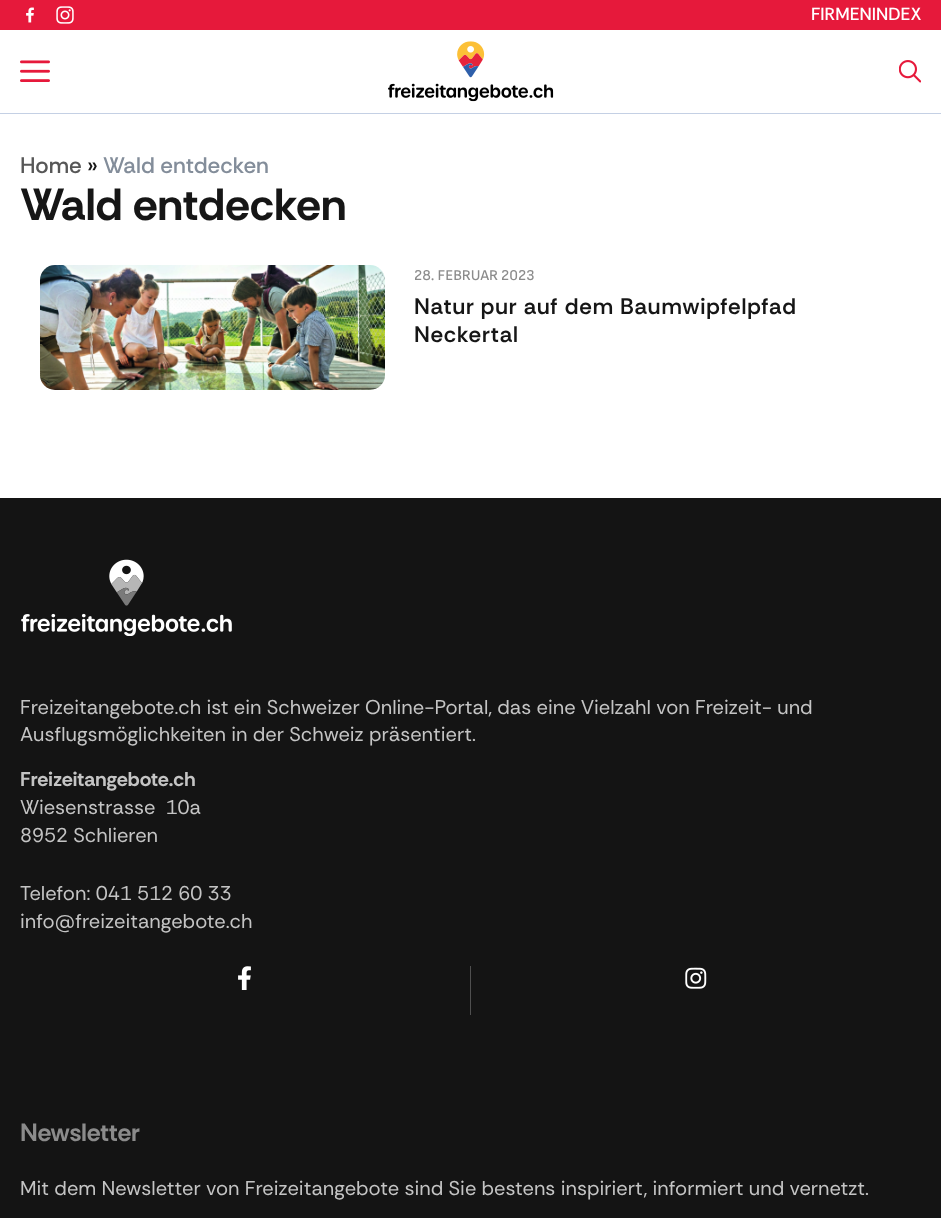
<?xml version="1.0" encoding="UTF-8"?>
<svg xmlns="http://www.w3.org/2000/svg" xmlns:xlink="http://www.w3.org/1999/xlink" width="941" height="1218">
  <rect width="100%" height="100%" fill="#ffffff" />
  <rect width="941" height="30" fill="#e6193b" />
  <image x="26" y="7" width="8" height="16" xlink:href="image1.png" />
  <image x="56" y="6" width="18" height="18" xlink:href="image2.png" />
  <rect y="113" width="941" height="1" fill="#c4d0e4" />
  <image x="20" y="60" width="30" height="22" xlink:href="image3.png" />
  <image x="388" y="41" width="166" height="61" xlink:href="image4.png" />
  <image x="899" y="60" width="22" height="23" xlink:href="image5.png" />
  <image x="40" y="265" width="345" height="125" xlink:href="image6.png" />
  <rect y="498" width="941" height="720" fill="#141414" />
  <image x="21" y="559" width="211" height="77" xlink:href="image7.png" />
  <rect x="470" y="966" width="1" height="49" fill="#4f4f4f" />
  <image x="238" y="966" width="13" height="24" xlink:href="image8.png" />
  <image x="685" y="967" width="22" height="22" xlink:href="image9.png" />
  <text x="811" y="20" style="font-family: Rethink Sans; font-size: 17.5px; font-weight: 500; fill: #ffffff">FIRMENINDEX</text>
  <text x="20" y="173" style="font-family: Rethink Sans; font-size: 22.5px; font-weight: 500; fill: #575757">Home</text>
  <text x="87" y="173" style="font-family: Rethink Sans; font-size: 22.5px; font-weight: 500; fill: #161616">»</text>
  <text x="103" y="173" style="font-family: Rethink Sans; font-size: 22.5px; font-weight: 500; fill: #838d9a">Wald entdecken</text>
  <text x="20" y="220" style="font-family: Rethink Sans; font-size: 45px; font-weight: bold; fill: #161616">Wald entdecken</text>
  <text x="414" y="280" style="font-family: Sofia Sans; font-size: 15px; font-weight: 500; fill: #8b8b8b">28. FEBRUAR 2023</text>
  <text x="414" y="314" style="font-family: Rethink Sans; font-size: 22.5px; font-weight: 600; letter-spacing: 0.8px; fill: #161616">Natur pur auf dem Baumwipfelpfad</text>
  <text x="414" y="342" style="font-family: Rethink Sans; font-size: 22.5px; font-weight: 600; letter-spacing: 0.8px; fill: #161616">Neckertal</text>
  <text x="20" y="714" style="font-family: Rethink Sans; font-size: 20px; fill: #c4c4c4">Freizeitangebote.ch ist ein Schweizer Online-Portal, das eine Vielzahl von Freizeit- und</text>
  <text x="20" y="741" style="font-family: Rethink Sans; font-size: 20px; fill: #c4c4c4">Ausflugsmöglichkeiten in der Schweiz präsentiert.</text>
  <text x="20" y="786" style="font-family: Rethink Sans; font-size: 20px; font-weight: bold; fill: #c4c4c4">Freizeitangebote.ch</text>
  <text x="20" y="814" word-spacing="5" style="font-family: Rethink Sans; font-size: 20px; fill: #c4c4c4">Wiesenstrasse 10a</text>
  <text x="20" y="842" style="font-family: Rethink Sans; font-size: 20px; fill: #c4c4c4">8952 Schlieren</text>
  <text x="20" y="900" style="font-family: Rethink Sans; font-size: 20px; fill: #c4c4c4">Telefon: 041 512 60 33</text>
  <text x="20" y="928" style="font-family: Rethink Sans; font-size: 20px; fill: #c4c4c4">info@freizeitangebote.ch</text>
  <text x="20" y="1141" style="font-family: Rethink Sans; font-size: 25px; font-weight: bold; fill: #8b8b8b">Newsletter</text>
  <text x="20" y="1195" style="font-family: Rethink Sans; font-size: 20px; fill: #c4c4c4">Mit dem Newsletter von Freizeitangebote sind Sie bestens inspiriert, informiert und vernetzt.</text>
</svg>
